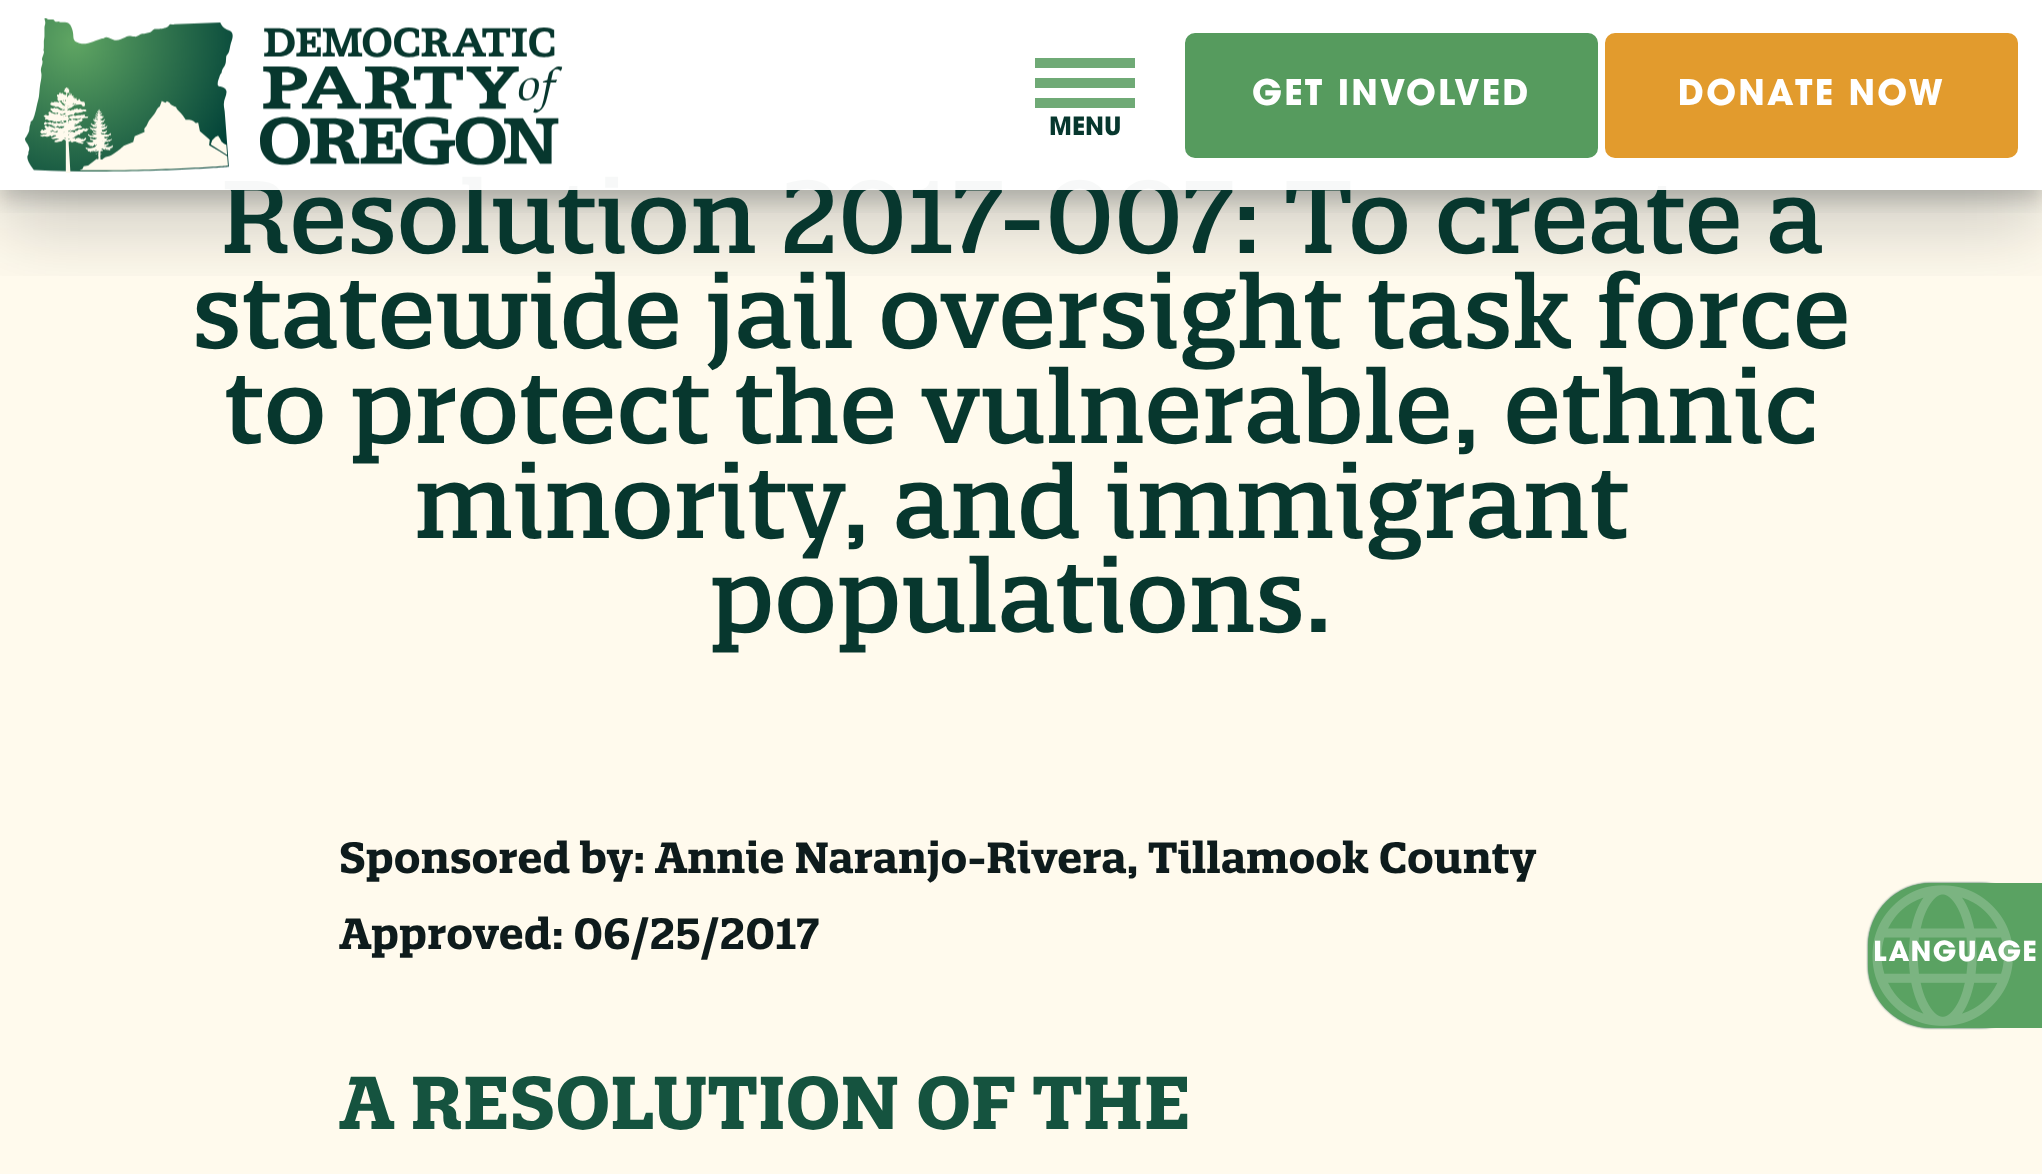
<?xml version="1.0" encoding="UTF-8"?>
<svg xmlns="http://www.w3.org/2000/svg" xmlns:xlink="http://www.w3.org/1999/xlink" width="2042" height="1174">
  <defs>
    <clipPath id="clip1"><rect x="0" y="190" width="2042" height="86" /></clipPath>
    <clipPath id="clip2"><rect x="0" y="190" width="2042" height="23" /></clipPath>
  </defs>
  <rect width="100%" height="100%" fill="#fffaed" />
  <g clip-path="url(#clip1)">
    <rect y="38" width="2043" height="190" fill="#0e1b1c" fill-opacity="0.2" filter="blur(37.5px)" />
  </g>
  <g clip-path="url(#clip2)">
    <rect y="10" width="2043" height="190" fill="#0e1b1c" fill-opacity="0.2" filter="blur(10px)" />
  </g>
  <rect x="1868" y="883" width="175" height="145" rx="63" fill="#15533f" filter="blur(1px)" />
  <path d="M 1931 883 h 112 v 145 h -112 c -35 0 -63 -28 -63 -63 v -19 c 0 -35 28 -63 63 -63 z" fill="#5aa262" />
  <image x="1872" y="885" width="141" height="141" xlink:href="image2.png" />
  <text x="220" y="253" style="font-family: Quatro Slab; font-size: 100px; font-weight: 500; fill: #07372e">Resolution 2017-007: To create a</text>
  <rect width="2042" height="190" fill="#ffffff" fill-opacity="0.97" />
  <text x="1049" y="135" style="font-family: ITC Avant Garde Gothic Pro; font-size: 25px; font-weight: bold; fill: #07372e">MENU</text>
  <rect x="1035" y="98" width="100" height="10" fill="#569b5e" fill-opacity="0.85" />
  <rect x="1035" y="78" width="100" height="10" fill="#6faa76" />
  <rect x="1035" y="58" width="100" height="10" fill="#6faa76" />
  <image x="25" y="18" width="538" height="155" xlink:href="image1.png" />
  <rect x="1606.5" y="34.5" width="410" height="122" rx="8.5" fill="#e29b2d" stroke="#e29b2d" stroke-width="3" />
  <text x="1678" y="105" style="font-family: ITC Avant Garde Gothic Pro; font-size: 35px; font-weight: bold; letter-spacing: 2.25px; fill: #ffffff">DONATE NOW</text>
  <rect x="1186.5" y="34.5" width="410" height="122" rx="8.5" fill="#569b5e" stroke="#569b5e" stroke-width="3" />
  <text x="1252" y="105" style="font-family: ITC Avant Garde Gothic Pro; font-size: 35px; font-weight: bold; letter-spacing: 2.25px; fill: #ffffff">GET INVOLVED</text>
  <text x="192" y="348" style="font-family: Quatro Slab; font-size: 100px; font-weight: 500; fill: #07372e">statewide jail oversight task force</text>
  <text x="224" y="443" style="font-family: Quatro Slab; font-size: 100px; font-weight: 500; fill: #07372e">to protect the vulnerable, ethnic</text>
  <text x="414" y="538" style="font-family: Quatro Slab; font-size: 100px; font-weight: 500; fill: #07372e">minority, and immigrant</text>
  <text x="710" y="632" style="font-family: Quatro Slab; font-size: 100px; font-weight: 500; fill: #07372e">populations.</text>
  <text x="339" y="873" style="font-family: Quatro Slab; font-size: 42.5px; font-weight: bold; fill: #0e1b1c">Sponsored by: Annie Naranjo-Rivera, Tillamook County</text>
  <text x="339" y="949" style="font-family: Quatro Slab; font-size: 42.5px; font-weight: bold; fill: #0e1b1c">Approved: 06/25/2017</text>
  <text x="339" y="1129" style="font-family: Quatro Slab; font-size: 72.5px; font-weight: bold; fill: #15533f">A RESOLUTION OF THE</text>
  <text x="1873" y="961" style="font-family: ITC Avant Garde Gothic Pro; font-size: 27.5px; font-weight: bold; letter-spacing: 1.25px; fill: #ffffff">LANGUAGE</text>
</svg>
